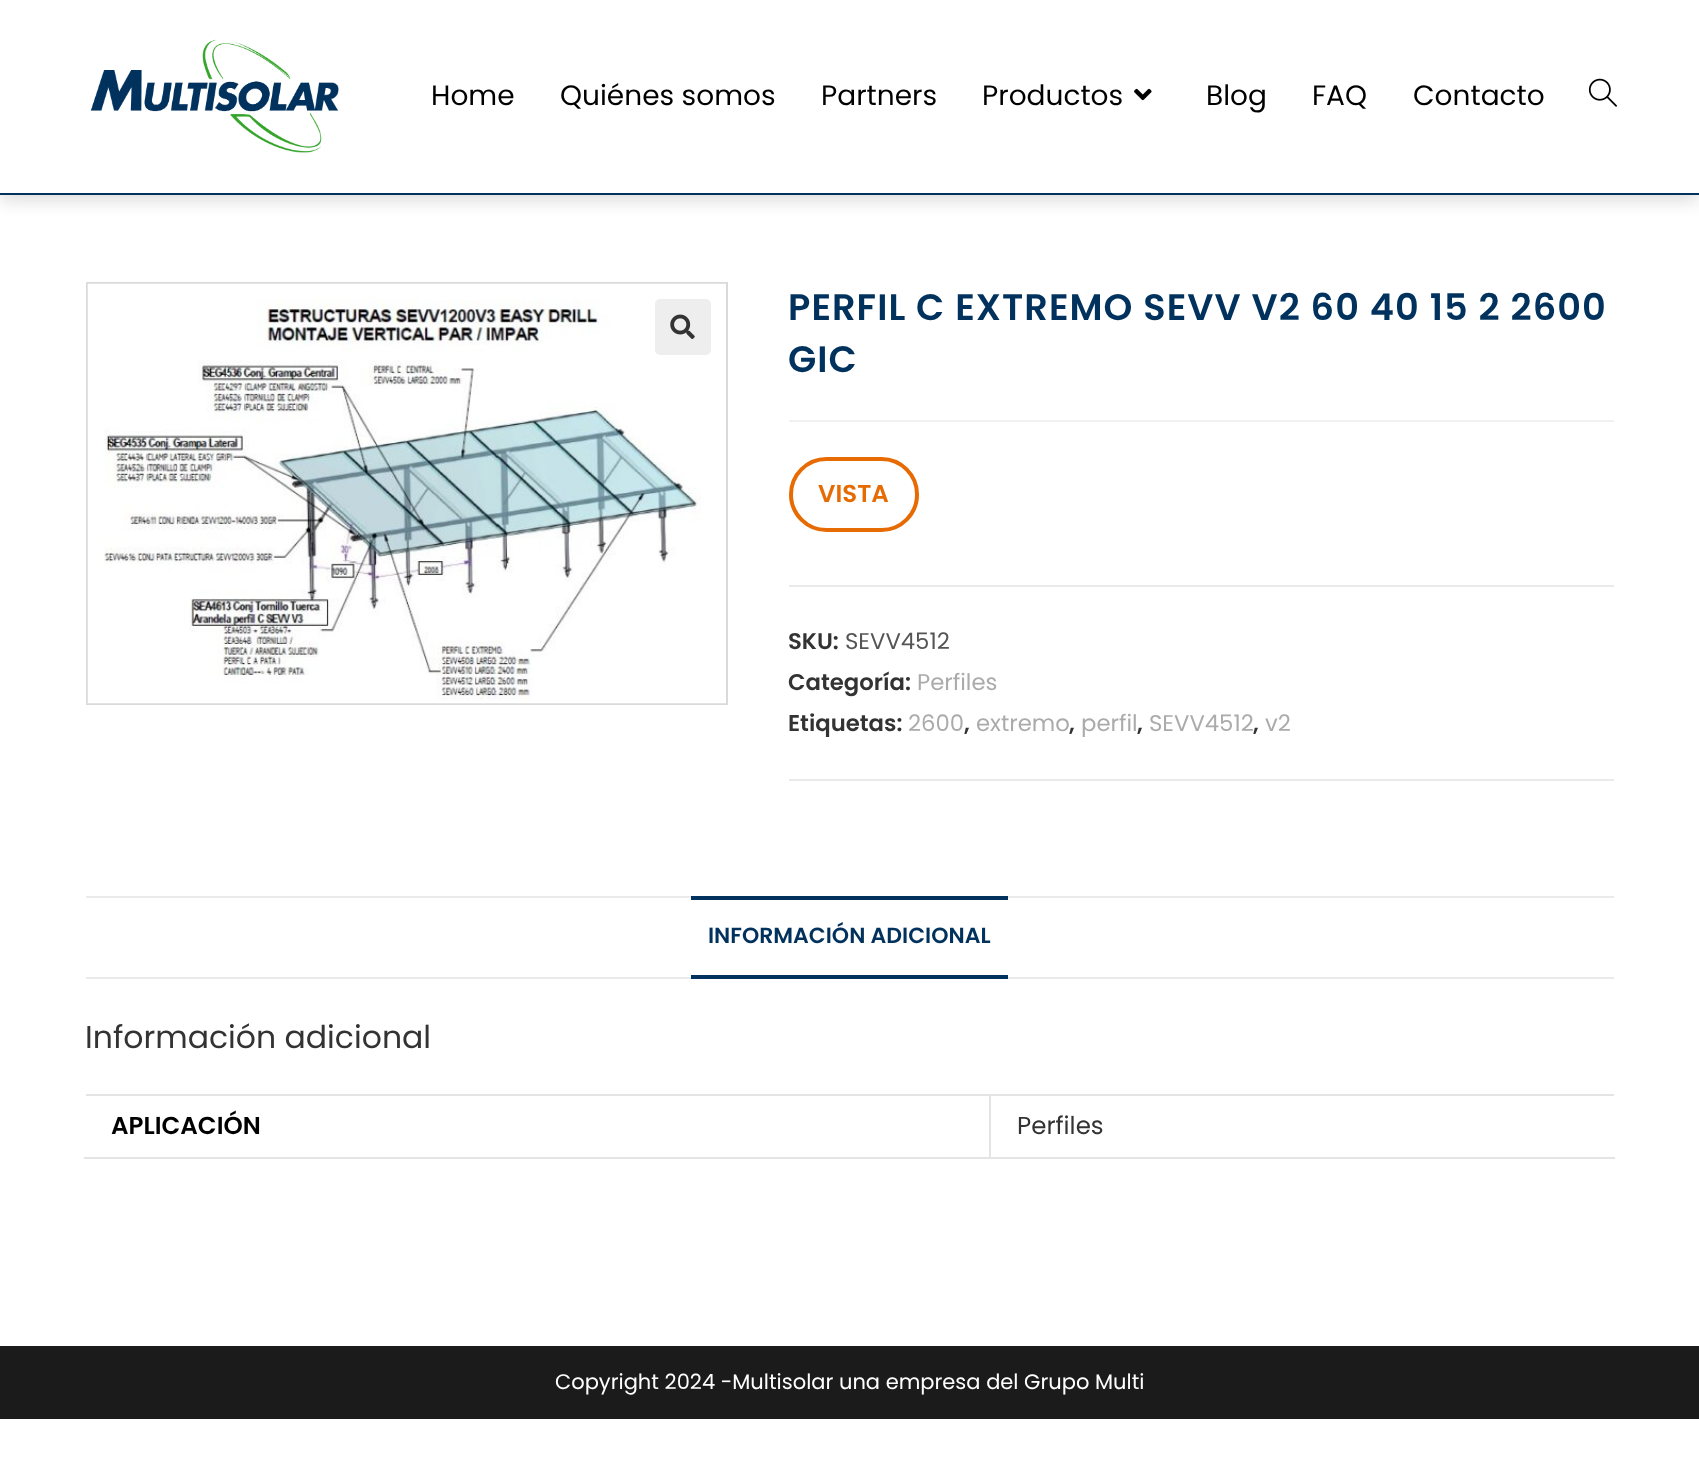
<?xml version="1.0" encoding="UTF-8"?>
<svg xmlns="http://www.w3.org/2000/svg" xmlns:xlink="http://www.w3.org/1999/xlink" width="1699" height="1478">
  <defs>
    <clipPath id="clip1"><rect x="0" y="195" width="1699" height="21" /></clipPath>
  </defs>
  <rect width="100%" height="100%" fill="#ffffff" />
  <g clip-path="url(#clip1)">
    <rect y="5" width="1699" height="195" fill="#b5b5b5" fill-opacity="0.5" filter="blur(9px)" />
  </g>
  <rect y="193" width="1699" height="2" fill="#01325d" />
  <image x="90" y="39" width="249" height="114" xlink:href="image1.png" />
  <image x="1134" y="88" width="18" height="13" xlink:href="image2.png" />
  <image x="1588" y="78" width="29" height="29" xlink:href="image3.png" />
  <rect x="87" y="283" width="640" height="421" fill="none" stroke="#dadada" stroke-width="2" />
  <image x="87" y="283" width="639" height="421" xlink:href="image4.png" />
  <rect x="655" y="299" width="56" height="56" rx="5" fill="#eeeeee" />
  <image x="670" y="314" width="25" height="25" xlink:href="image5.png" />
  <rect x="789" y="420" width="825" height="2" fill="#f1f1f1" />
  <rect x="791" y="459" width="126" height="71" rx="35.5" fill="none" stroke="#e66b03" stroke-width="4" />
  <rect x="789" y="585" width="825" height="2" fill="#eaeaea" />
  <rect x="789" y="779" width="825" height="2" fill="#eaeaea" />
  <rect x="86" y="896" width="1528" height="2" fill="#eaeaea" />
  <rect x="86" y="977" width="1528" height="2" fill="#eaeaea" />
  <rect x="691" y="896" width="317" height="4" fill="#01325d" />
  <rect x="691" y="975" width="317" height="4" fill="#01325d" />
  <rect x="86" y="1094" width="1528" height="2" fill="#e4e4e4" />
  <rect x="989" y="1157" width="626" height="2" fill="#e4e4e4" />
  <rect x="989" y="1094" width="2" height="65" fill="#e4e4e4" />
  <rect x="84" y="1157" width="907" height="2" fill="#e4e4e4" />
  <rect y="1346" width="1699" height="73" fill="#1b1b1b" />
  <text x="431" y="105" style="font-family: Poppins; font-size: 28px; fill: #000000">Home</text>
  <text x="560" y="105" style="font-family: Poppins; font-size: 28px; fill: #000000">Quiénes somos</text>
  <text x="821" y="105" style="font-family: Poppins; font-size: 28px; fill: #000000">Partners</text>
  <text x="982" y="105" style="font-family: Poppins; font-size: 28px; fill: #000000">Productos</text>
  <text x="1206" y="105" style="font-family: Poppins; font-size: 28px; fill: #000000">Blog</text>
  <text x="1312" y="105" style="font-family: Poppins; font-size: 28px; fill: #000000">FAQ</text>
  <text x="1413" y="105" style="font-family: Poppins; font-size: 28px; fill: #000000">Contacto</text>
  <text x="788" y="320" style="font-family: Poppins; font-size: 36.75px; font-weight: 600; letter-spacing: 1.05px; fill: #01325d">PERFIL C EXTREMO SEVV V2 60 40 15 2 2600</text>
  <text x="788" y="372" style="font-family: Poppins; font-size: 36.75px; font-weight: 600; letter-spacing: 1.05px; fill: #01325d">GIC</text>
  <text x="818" y="502" style="font-family: Poppins; font-size: 24.5px; font-weight: 600; fill: #e66b03">VISTA</text>
  <text x="788" y="649" style="font-family: Poppins; font-size: 22.75px; font-weight: 600; fill: #333333">SKU:</text>
  <text x="845" y="649" style="font-family: Poppins; font-size: 22.75px; fill: #555555">SEVV4512</text>
  <text x="788" y="690" style="font-family: Poppins; font-size: 22.75px; font-weight: 600; fill: #333333">Categoría:</text>
  <text x="917" y="690" style="font-family: Poppins; font-size: 22.75px; fill: #ababab">Perfiles</text>
  <text x="788" y="731" style="font-family: Poppins; font-size: 22.75px; font-weight: 600; fill: #333333">Etiquetas:</text>
  <text x="908" y="731" style="font-family: Poppins; font-size: 22.75px; fill: #ababab">2600</text>
  <text x="964" y="731" style="font-family: Poppins; font-size: 22.75px; font-weight: 600; fill: #333333">,</text>
  <text x="976" y="731" style="font-family: Poppins; font-size: 22.75px; fill: #ababab">extremo</text>
  <text x="1069" y="731" style="font-family: Poppins; font-size: 22.75px; font-weight: 600; fill: #333333">,</text>
  <text x="1081" y="731" style="font-family: Poppins; font-size: 22.75px; fill: #ababab">perfil</text>
  <text x="1137" y="731" style="font-family: Poppins; font-size: 22.75px; font-weight: 600; fill: #333333">,</text>
  <text x="1149" y="731" style="font-family: Poppins; font-size: 22.75px; fill: #ababab">SEVV4512</text>
  <text x="1253" y="731" style="font-family: Poppins; font-size: 22.75px; font-weight: 600; fill: #333333">,</text>
  <text x="1265" y="731" style="font-family: Poppins; font-size: 22.75px; fill: #ababab">v2</text>
  <text x="708" y="943" style="font-family: Poppins; font-size: 22px; font-weight: 600; fill: #01325d">INFORMACIÓN ADICIONAL</text>
  <text x="85" y="1048" style="font-family: Poppins; font-size: 31.5px; fill: #333333">Información adicional</text>
  <text x="111" y="1134" style="font-family: Poppins; font-size: 24.5px; font-weight: 600; fill: #000000">APLICACIÓN</text>
  <text x="1017" y="1134" style="font-family: Poppins; font-size: 24.5px; fill: #333333">Perfiles</text>
  <text x="555" y="1389" style="font-family: Poppins; font-size: 21px; fill: #ffffff">Copyright 2024 -Multisolar una empresa del Grupo Multi</text>
</svg>
